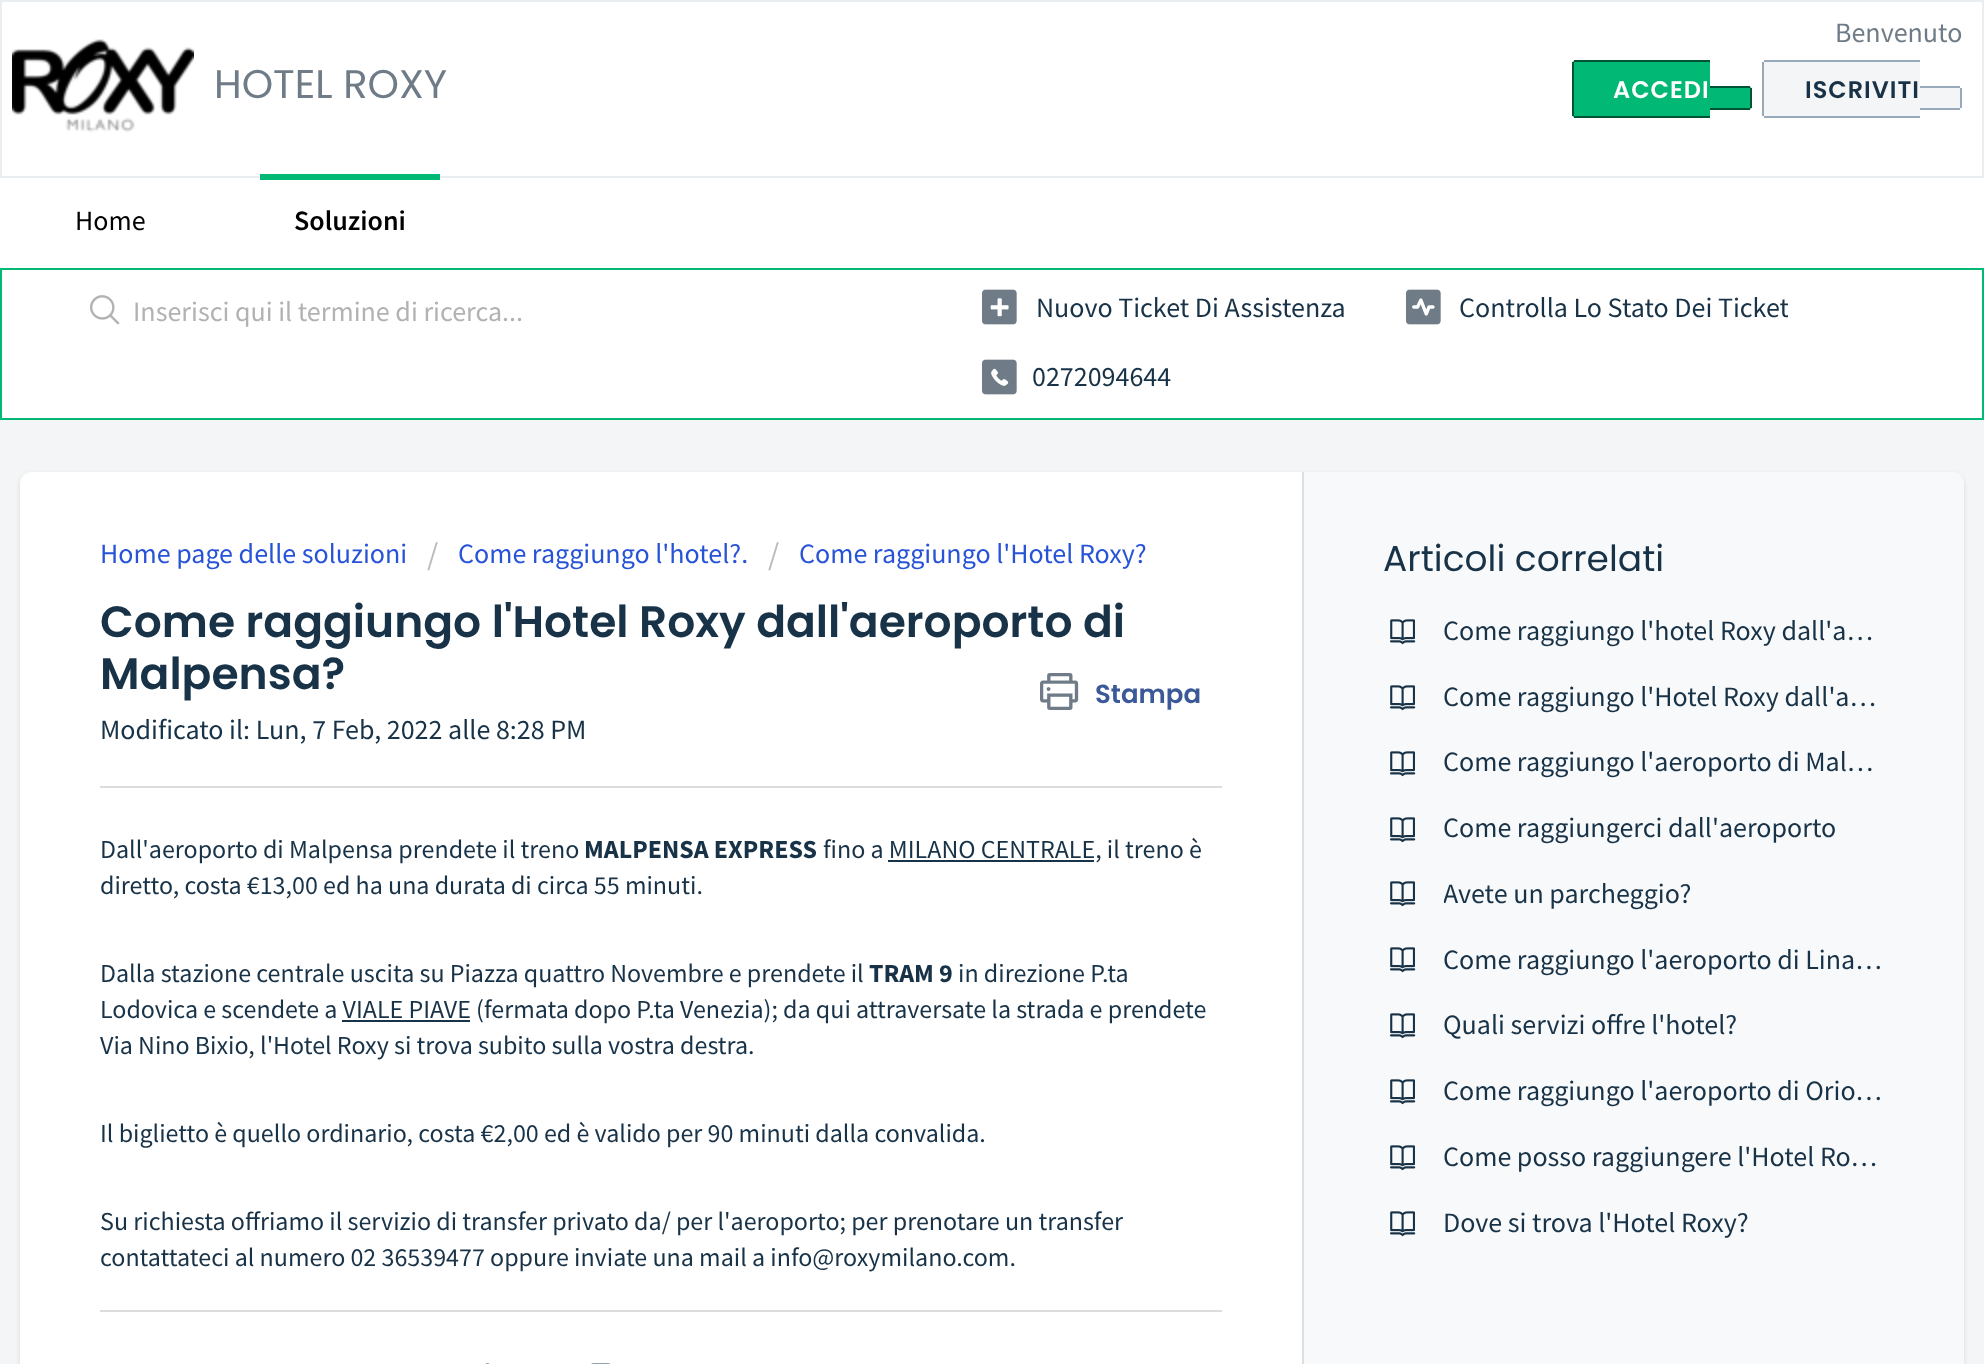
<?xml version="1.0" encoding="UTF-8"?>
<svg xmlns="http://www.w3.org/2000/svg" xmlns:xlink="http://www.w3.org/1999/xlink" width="1984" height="1364">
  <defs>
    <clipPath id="clip1"><rect x="1406" y="274" width="382" height="70" /></clipPath>
    <clipPath id="clip2"><rect x="1444" y="870" width="440" height="46" /></clipPath>
  </defs>
  <rect width="100%" height="100%" fill="#f3f5f7" />
  <rect x="1" y="1" width="1982" height="176" fill="#ffffff" stroke="#ebeef0" stroke-width="2" />
  <image x="12" y="39" width="182" height="94" xlink:href="image1.png" />
  <path d="M 1576 60 h 134 v 58 h -134 c -2 0 -4 -2 -4 -4 v -50 c 0 -2 2 -4 4 -4 z" fill="#02b875" />
  <rect x="1574" y="60" width="136" height="2" fill="#015335" />
  <rect x="1574" y="116" width="136" height="2" fill="#015335" />
  <rect x="1572" y="62" width="2" height="54" fill="#015335" />
  <path d="M 1710 86 h 38 c 2 0 4 2 4 4 v 16 c 0 2 -2 4 -4 4 h -38 z" fill="#02b875" />
  <rect x="1710" y="86" width="40" height="2" fill="#015335" />
  <rect x="1750" y="88" width="2" height="20" fill="#015335" />
  <rect x="1710" y="108" width="40" height="2" fill="#015335" />
  <path d="M 1766 60 h 154 v 58 h -154 c -2 0 -4 -2 -4 -4 v -50 c 0 -2 2 -4 4 -4 z" fill="#f3f5f7" />
  <rect x="1764" y="60" width="156" height="2" fill="#97a9ba" />
  <rect x="1764" y="116" width="156" height="2" fill="#97a9ba" />
  <rect x="1762" y="62" width="2" height="54" fill="#97a9ba" />
  <path d="M 1920 86 h 38 c 2 0 4 2 4 4 v 16 c 0 2 -2 4 -4 4 h -38 z" fill="#f3f5f7" />
  <rect x="1920" y="86" width="40" height="2" fill="#97a9ba" />
  <rect x="1960" y="88" width="2" height="20" fill="#97a9ba" />
  <rect x="1920" y="108" width="40" height="2" fill="#97a9ba" />
  <rect y="178" width="1984" height="90" fill="#ffffff" />
  <rect x="260" y="174" width="180" height="6" fill="#02b875" />
  <rect x="1" y="269" width="1982" height="150" fill="#ffffff" stroke="#02b875" stroke-width="2" />
  <image x="90" y="295" width="30" height="30" xlink:href="image2.png" />
  <image x="982" y="289" width="35" height="36" xlink:href="image3.png" />
  <image x="1406" y="289" width="35" height="36" xlink:href="image4.png" />
  <image x="982" y="359" width="35" height="36" xlink:href="image5.png" />
  <rect x="20" y="474" width="1944" height="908" rx="12" fill="#3f3f44" fill-opacity="0.15" filter="blur(2px)" />
  <rect x="20" y="472" width="1944" height="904" rx="12" fill="#f8f9fa" />
  <path d="M 32 472 h 1272 v 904 h -1272 c -6.5 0 -12 -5.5 -12 -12 v -880 c 0 -6.5 5.5 -12 12 -12 z" fill="#ffffff" />
  <rect x="1302" y="472" width="2" height="892" fill="#dadfe3" />
  <image x="1040" y="673" width="39" height="37" xlink:href="image6.png" />
  <rect x="100" y="786" width="1122" height="2" fill="#dcdcdc" />
  <rect x="888" y="860" width="206" height="2" fill="#183247" />
  <rect x="342" y="1020" width="128" height="2" fill="#183247" />
  <rect x="100" y="1310" width="1122" height="2" fill="#dcdcdc" />
  <image x="485" y="1363" width="5" height="1" xlink:href="image7.png" />
  <image x="591" y="1363" width="20" height="1" xlink:href="image8.png" />
  <path d="M 1304 472 h 648 c 6.5 0 12 5.5 12 12 v 810 c 0 6.5 -5.5 12 -12 12 h -648 z" fill="#f8f9fa" />
  <image x="1390" y="619" width="26" height="26" xlink:href="image9.png" />
  <image x="1390" y="685" width="26" height="26" xlink:href="image9.png" />
  <image x="1390" y="751" width="26" height="26" xlink:href="image9.png" />
  <image x="1390" y="817" width="26" height="26" xlink:href="image9.png" />
  <image x="1390" y="881" width="26" height="26" xlink:href="image9.png" />
  <image x="1390" y="947" width="26" height="26" xlink:href="image9.png" />
  <image x="1390" y="1013" width="26" height="26" xlink:href="image9.png" />
  <image x="1390" y="1079" width="26" height="26" xlink:href="image9.png" />
  <image x="1390" y="1145" width="26" height="26" xlink:href="image9.png" />
  <image x="1390" y="1211" width="26" height="26" xlink:href="image9.png" />
  <text x="214" y="98" style="font-family: Poppins; font-size: 40px; fill: #6f7c87">HOTEL ROXY</text>
  <text x="1835" y="42" style="font-family: Source Sans Pro; font-size: 28px; fill: #6f7c87">Benvenuto</text>
  <text x="1613" y="98" style="font-family: Poppins; font-size: 24px; font-weight: 600; letter-spacing: 1px; fill: #ffffff">ACCEDI</text>
  <text x="1805" y="98" style="font-family: Poppins; font-size: 24px; font-weight: 600; letter-spacing: 1px; fill: #183247">ISCRIVITI</text>
  <text x="75" y="230" style="font-family: Source Sans Pro; font-size: 28px; fill: #000000">Home</text>
  <text x="294" y="230" style="font-family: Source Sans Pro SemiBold; font-size: 28px; font-weight: 600; fill: #000000">Soluzioni</text>
  <text x="133" y="321" style="font-family: Source Sans Pro; font-size: 28px; fill: #b2b2b2">Inserisci qui il termine di ricerca...</text>
  <text x="1036" y="317" style="font-family: Source Sans Pro; font-size: 28px; fill: #183247">Nuovo Ticket Di Assistenza</text>
  <g clip-path="url(#clip1)">
    <text x="1459" y="317" style="font-family: Source Sans Pro; font-size: 28px; fill: #183247">Controlla Lo Stato Dei Ticket</text>
  </g>
  <text x="1032" y="386" style="font-family: Source Sans Pro; font-size: 28px; fill: #183247">0272094644</text>
  <text x="100" y="563" style="font-family: Source Sans Pro; font-size: 28px; fill: #2753d7">Home page delle soluzioni</text>
  <text x="427" y="565" style="font-family: Source Sans Pro; font-size: 32px; fill: #bbbbbb">/</text>
  <text x="458" y="563" style="font-family: Source Sans Pro; font-size: 28px; fill: #2753d7">Come raggiungo l'hotel?.</text>
  <text x="768" y="565" style="font-family: Source Sans Pro; font-size: 32px; fill: #bbbbbb">/</text>
  <text x="799" y="563" style="font-family: Source Sans Pro; font-size: 28px; fill: #2753d7">Come raggiungo l'Hotel Roxy?</text>
  <text x="100" y="637" style="font-family: Poppins; font-size: 44px; font-weight: 600; fill: #183247">Come raggiungo l'Hotel Roxy dall'aeroporto di</text>
  <text x="100" y="689" style="font-family: Poppins; font-size: 44px; font-weight: 600; fill: #183247">Malpensa?</text>
  <text x="1095" y="703" style="font-family: Poppins; font-size: 26px; font-weight: 600; fill: #3b5998">Stampa</text>
  <text x="100" y="739" style="font-family: Source Sans Pro; font-size: 28px; fill: #183247">Modificato il: Lun, 7 Feb, 2022 alle 8:28 PM</text>
  <text x="100" y="858" style="font-family: Source Sans Pro; font-size: 26px; fill: #183247">Dall'aeroporto di Malpensa prendete il treno</text>
  <text x="584" y="858" style="font-family: Source Sans Pro; font-size: 26px; font-weight: bold; fill: #183247">MALPENSA EXPRESS</text>
  <text x="823" y="858" style="font-family: Source Sans Pro; font-size: 26px; fill: #183247">fino a MILANO CENTRALE, il treno è</text>
  <text x="100" y="894" style="font-family: Source Sans Pro; font-size: 26px; fill: #183247">diretto, costa €13,00 ed ha una durata di circa 55 minuti.</text>
  <text x="100" y="982" style="font-family: Source Sans Pro; font-size: 26px; fill: #183247">Dalla stazione centrale uscita su Piazza quattro Novembre e prendete il</text>
  <text x="869" y="982" style="font-family: Source Sans Pro; font-size: 26px; font-weight: bold; fill: #183247">TRAM 9</text>
  <text x="958" y="982" style="font-family: Source Sans Pro; font-size: 26px; fill: #183247">in direzione P.ta</text>
  <text x="100" y="1018" style="font-family: Source Sans Pro; font-size: 26px; fill: #183247">Lodovica e scendete a VIALE PIAVE (fermata dopo P.ta Venezia); da qui attraversate la strada e prendete</text>
  <text x="100" y="1054" style="font-family: Source Sans Pro; font-size: 26px; fill: #183247">Via Nino Bixio, l'Hotel Roxy si trova subito sulla vostra destra.</text>
  <text x="100" y="1142" style="font-family: Source Sans Pro; font-size: 26px; fill: #183247">Il biglietto è quello ordinario, costa €2,00 ed è valido per 90 minuti dalla convalida.</text>
  <text x="100" y="1230" style="font-family: Source Sans Pro; font-size: 26px; fill: #183247">Su richiesta offriamo il servizio di transfer privato da/ per l'aeroporto; per prenotare un transfer</text>
  <text x="100" y="1266" style="font-family: Source Sans Pro; font-size: 26px; fill: #183247">contattateci al numero 02 36539477 oppure inviate una mail a info@roxymilano.com.</text>
  <text x="1383" y="571" style="font-family: Poppins; font-size: 36px; fill: #183247">Articoli correlati</text>
  <text x="1443" y="640" style="font-family: Source Sans Pro; font-size: 28px; fill: #183247">Come raggiungo l'hotel Roxy dall'a…</text>
  <text x="1443" y="706" style="font-family: Source Sans Pro; font-size: 28px; fill: #183247">Come raggiungo l'Hotel Roxy dall'a…</text>
  <text x="1443" y="771" style="font-family: Source Sans Pro; font-size: 28px; fill: #183247">Come raggiungo l'aeroporto di Mal…</text>
  <text x="1443" y="837" style="font-family: Source Sans Pro; font-size: 28px; fill: #183247">Come raggiungerci dall'aeroporto</text>
  <g clip-path="url(#clip2)">
    <text x="1443" y="903" style="font-family: Source Sans Pro; font-size: 28px; fill: #183247">Avete un parcheggio?</text>
  </g>
  <text x="1443" y="969" style="font-family: Source Sans Pro; font-size: 28px; fill: #183247">Come raggiungo l'aeroporto di Lina…</text>
  <text x="1443" y="1034" style="font-family: Source Sans Pro; font-size: 28px; fill: #183247">Quali servizi offre l'hotel?</text>
  <text x="1443" y="1100" style="font-family: Source Sans Pro; font-size: 28px; fill: #183247">Come raggiungo l'aeroporto di Orio…</text>
  <text x="1443" y="1166" style="font-family: Source Sans Pro; font-size: 28px; fill: #183247">Come posso raggiungere l'Hotel Ro…</text>
  <text x="1443" y="1232" style="font-family: Source Sans Pro; font-size: 28px; fill: #183247">Dove si trova l'Hotel Roxy?</text>
</svg>
